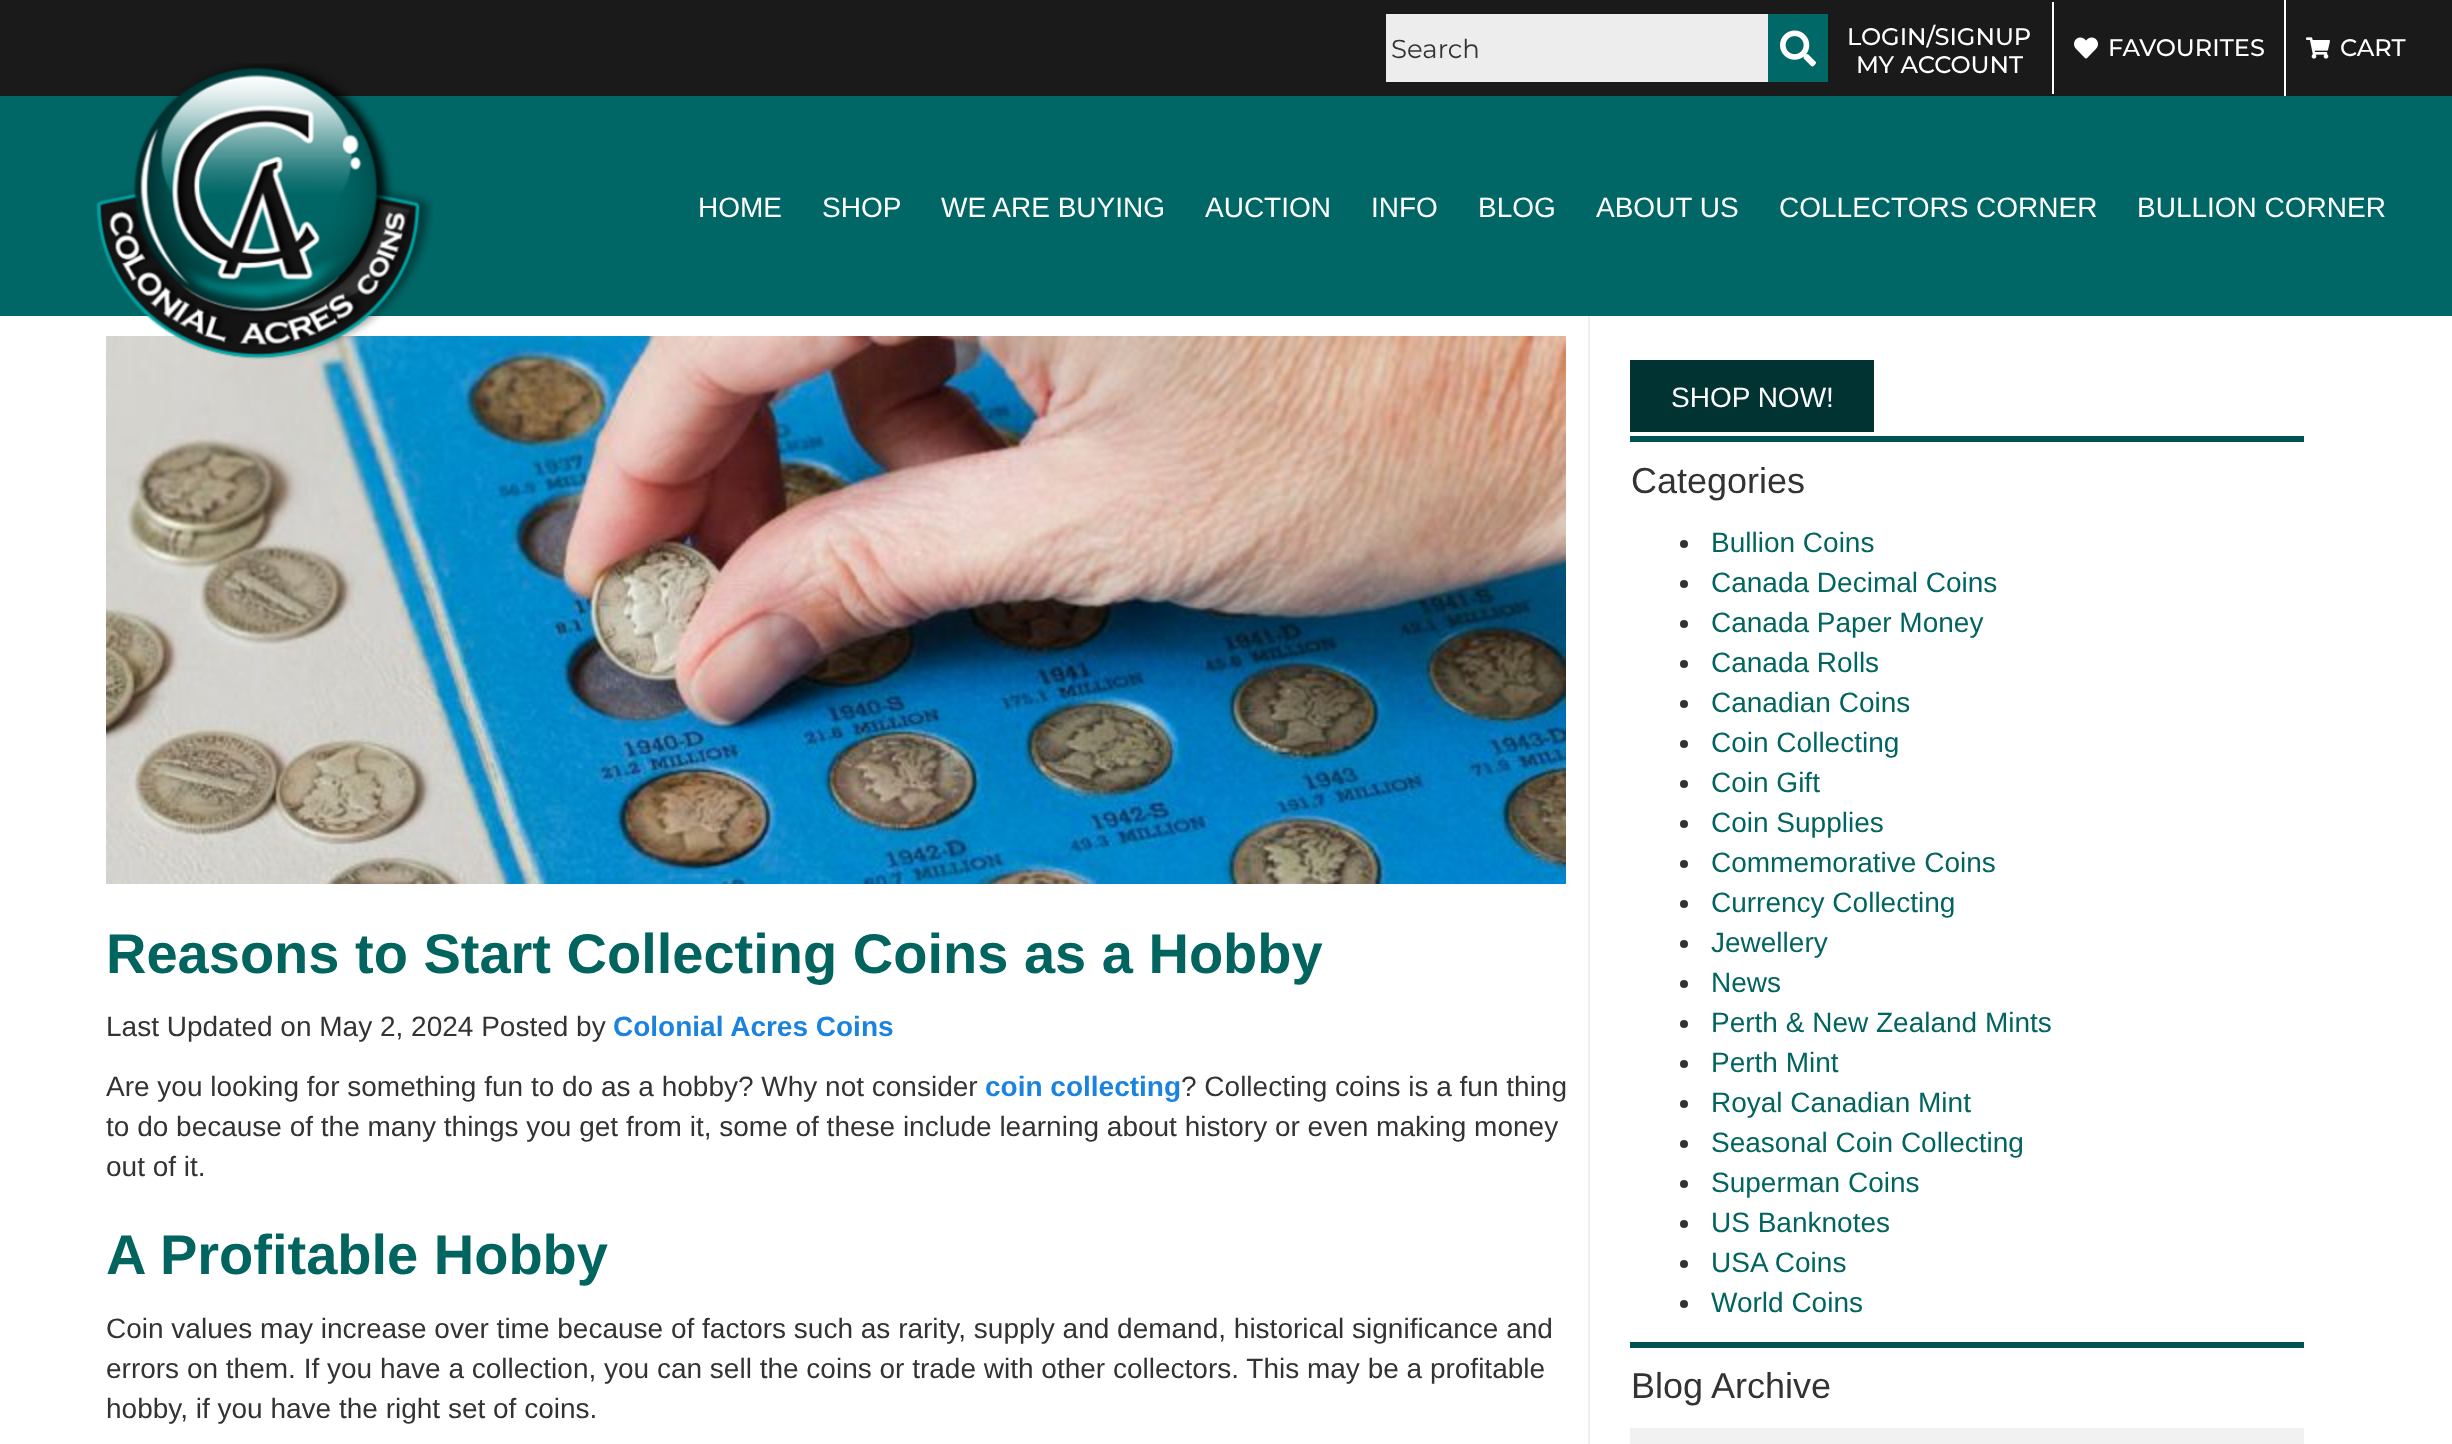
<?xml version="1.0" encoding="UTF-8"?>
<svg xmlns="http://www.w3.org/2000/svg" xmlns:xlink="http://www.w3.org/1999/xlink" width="2452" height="1444">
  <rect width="100%" height="100%" fill="#ffffff" />
  <rect width="2452" height="96" fill="#1a1a1a" />
  <rect x="1386" y="14" width="382" height="68" fill="#ededed" />
  <rect x="1768" y="14" width="60" height="68" fill="#006867" />
  <image x="1780" y="30" width="36" height="37" xlink:href="image1.png" />
  <rect x="2052" y="2" width="2" height="92" fill="#ffffff" />
  <rect x="2284" width="2" height="96" fill="#ffffff" />
  <image x="2074" y="37" width="24" height="22" xlink:href="image2.png" />
  <image x="2306" y="37" width="24" height="22" xlink:href="image3.png" />
  <rect y="96" width="2452" height="220" fill="#006766" />
  <image x="106" y="336" width="1460" height="548" xlink:href="image5.png" />
  <image x="96" y="63" width="337" height="297" xlink:href="image4.png" />
  <rect x="1588" y="316" width="2" height="1128" fill="#ebefef" />
  <rect x="1630" y="436" width="674" height="6" fill="#015253" />
  <rect x="1630" y="360" width="244" height="72" fill="#003332" />
  <rect x="1630" y="1342" width="674" height="6" fill="#015253" />
  <circle cx="1684" cy="544" r="4" fill="#333333" />
  <circle cx="1684" cy="584" r="4" fill="#333333" />
  <circle cx="1684" cy="624" r="4" fill="#333333" />
  <circle cx="1684" cy="664" r="4" fill="#333333" />
  <circle cx="1684" cy="704" r="4" fill="#333333" />
  <circle cx="1684" cy="744" r="4" fill="#333333" />
  <circle cx="1684" cy="784" r="4" fill="#333333" />
  <circle cx="1684" cy="824" r="4" fill="#333333" />
  <circle cx="1684" cy="864" r="4" fill="#333333" />
  <circle cx="1684" cy="904" r="4" fill="#333333" />
  <circle cx="1684" cy="944" r="4" fill="#333333" />
  <circle cx="1684" cy="984" r="4" fill="#333333" />
  <circle cx="1684" cy="1024" r="4" fill="#333333" />
  <circle cx="1684" cy="1064" r="4" fill="#333333" />
  <circle cx="1684" cy="1104" r="4" fill="#333333" />
  <circle cx="1684" cy="1144" r="4" fill="#333333" />
  <circle cx="1684" cy="1184" r="4" fill="#333333" />
  <circle cx="1684" cy="1224" r="4" fill="#333333" />
  <circle cx="1684" cy="1264" r="4" fill="#333333" />
  <circle cx="1684" cy="1304" r="4" fill="#333333" />
  <rect x="1630" y="1428" width="674" height="16" fill="#f1f1f1" />
  <text x="1391" y="58" style="font-family: Montserrat; font-size: 26px; fill: #333333">Search</text>
  <text x="1847" y="45" style="font-family: Montserrat; font-size: 24px; font-weight: 500; fill: #ffffff">LOGIN/SIGNUP</text>
  <text x="1856" y="73" style="font-family: Montserrat; font-size: 24px; font-weight: 500; fill: #ffffff">MY ACCOUNT</text>
  <text x="2108" y="56" style="font-family: Montserrat; font-size: 24px; font-weight: 500; fill: #ffffff">FAVOURITES</text>
  <text x="2340" y="56" style="font-family: Montserrat; font-size: 24px; font-weight: 500; fill: #ffffff">CART</text>
  <text x="698" y="217" style="font-family: Liberation Sans; font-size: 28px; fill: #ffffff">HOME</text>
  <text x="822" y="217" style="font-family: Liberation Sans; font-size: 28px; fill: #ffffff">SHOP</text>
  <text x="941" y="217" style="font-family: Liberation Sans; font-size: 28px; fill: #ffffff">WE ARE BUYING</text>
  <text x="1205" y="217" style="font-family: Liberation Sans; font-size: 28px; fill: #ffffff">AUCTION</text>
  <text x="1371" y="217" style="font-family: Liberation Sans; font-size: 28px; fill: #ffffff">INFO</text>
  <text x="1478" y="217" style="font-family: Liberation Sans; font-size: 28px; fill: #ffffff">BLOG</text>
  <text x="1596" y="217" style="font-family: Liberation Sans; font-size: 28px; fill: #ffffff">ABOUT US</text>
  <text x="1779" y="217" style="font-family: Liberation Sans; font-size: 28px; fill: #ffffff">COLLECTORS CORNER</text>
  <text x="2137" y="217" style="font-family: Liberation Sans; font-size: 28px; fill: #ffffff">BULLION CORNER</text>
  <text x="106" y="973" style="font-family: Liberation Sans; font-size: 56px; font-weight: bold; fill: #01645f">Reasons to Start Collecting Coins as a Hobby</text>
  <text x="106" y="1036" style="font-family: Liberation Sans; font-size: 28px; fill: #333333">Last Updated on May 2, 2024 Posted by</text>
  <text x="613" y="1036" style="font-family: Liberation Sans; font-size: 28px; font-weight: bold; fill: #1b83df">Colonial Acres Coins</text>
  <text x="106" y="1096" style="font-family: Liberation Sans; font-size: 28px; fill: #333333">Are you looking for something fun to do as a hobby? Why not consider</text>
  <text x="985" y="1096" style="font-family: Liberation Sans; font-size: 28px; font-weight: bold; fill: #1b83df">coin collecting</text>
  <text x="1181" y="1096" style="font-family: Liberation Sans; font-size: 28px; fill: #333333">? Collecting coins is a fun thing</text>
  <text x="106" y="1136" style="font-family: Liberation Sans; font-size: 28px; fill: #333333">to do because of the many things you get from it, some of these include learning about history or even making money</text>
  <text x="106" y="1176" style="font-family: Liberation Sans; font-size: 28px; fill: #333333">out of it.</text>
  <text x="106" y="1274" style="font-family: Liberation Sans; font-size: 56px; font-weight: bold; fill: #01645f">A Profitable Hobby</text>
  <text x="106" y="1338" style="font-family: Liberation Sans; font-size: 28px; fill: #333333">Coin values may increase over time because of factors such as rarity, supply and demand, historical significance and</text>
  <text x="106" y="1378" style="font-family: Liberation Sans; font-size: 28px; fill: #333333">errors on them. If you have a collection, you can sell the coins or trade with other collectors. This may be a profitable</text>
  <text x="106" y="1418" style="font-family: Liberation Sans; font-size: 28px; fill: #333333">hobby, if you have the right set of coins.</text>
  <text x="1671" y="407" style="font-family: Liberation Sans; font-size: 28px; fill: #ffffff">SHOP NOW!</text>
  <text x="1631" y="493" style="font-family: Liberation Sans; font-size: 36px; fill: #333333">Categories</text>
  <text x="1711" y="552" style="font-family: Liberation Sans; font-size: 28px; fill: #01645f">Bullion Coins</text>
  <text x="1711" y="592" style="font-family: Liberation Sans; font-size: 28px; fill: #01645f">Canada Decimal Coins</text>
  <text x="1711" y="632" style="font-family: Liberation Sans; font-size: 28px; fill: #01645f">Canada Paper Money</text>
  <text x="1711" y="672" style="font-family: Liberation Sans; font-size: 28px; fill: #01645f">Canada Rolls</text>
  <text x="1711" y="712" style="font-family: Liberation Sans; font-size: 28px; fill: #01645f">Canadian Coins</text>
  <text x="1711" y="752" style="font-family: Liberation Sans; font-size: 28px; fill: #01645f">Coin Collecting</text>
  <text x="1711" y="792" style="font-family: Liberation Sans; font-size: 28px; fill: #01645f">Coin Gift</text>
  <text x="1711" y="832" style="font-family: Liberation Sans; font-size: 28px; fill: #01645f">Coin Supplies</text>
  <text x="1711" y="872" style="font-family: Liberation Sans; font-size: 28px; fill: #01645f">Commemorative Coins</text>
  <text x="1711" y="912" style="font-family: Liberation Sans; font-size: 28px; fill: #01645f">Currency Collecting</text>
  <text x="1711" y="952" style="font-family: Liberation Sans; font-size: 28px; fill: #01645f">Jewellery</text>
  <text x="1711" y="992" style="font-family: Liberation Sans; font-size: 28px; fill: #01645f">News</text>
  <text x="1711" y="1032" style="font-family: Liberation Sans; font-size: 28px; fill: #01645f">Perth &amp; New Zealand Mints</text>
  <text x="1711" y="1072" style="font-family: Liberation Sans; font-size: 28px; fill: #01645f">Perth Mint</text>
  <text x="1711" y="1112" style="font-family: Liberation Sans; font-size: 28px; fill: #01645f">Royal Canadian Mint</text>
  <text x="1711" y="1152" style="font-family: Liberation Sans; font-size: 28px; fill: #01645f">Seasonal Coin Collecting</text>
  <text x="1711" y="1192" style="font-family: Liberation Sans; font-size: 28px; fill: #01645f">Superman Coins</text>
  <text x="1711" y="1232" style="font-family: Liberation Sans; font-size: 28px; fill: #01645f">US Banknotes</text>
  <text x="1711" y="1272" style="font-family: Liberation Sans; font-size: 28px; fill: #01645f">USA Coins</text>
  <text x="1711" y="1312" style="font-family: Liberation Sans; font-size: 28px; fill: #01645f">World Coins</text>
  <text x="1631" y="1398" style="font-family: Liberation Sans; font-size: 36px; fill: #333333">Blog Archive</text>
</svg>
